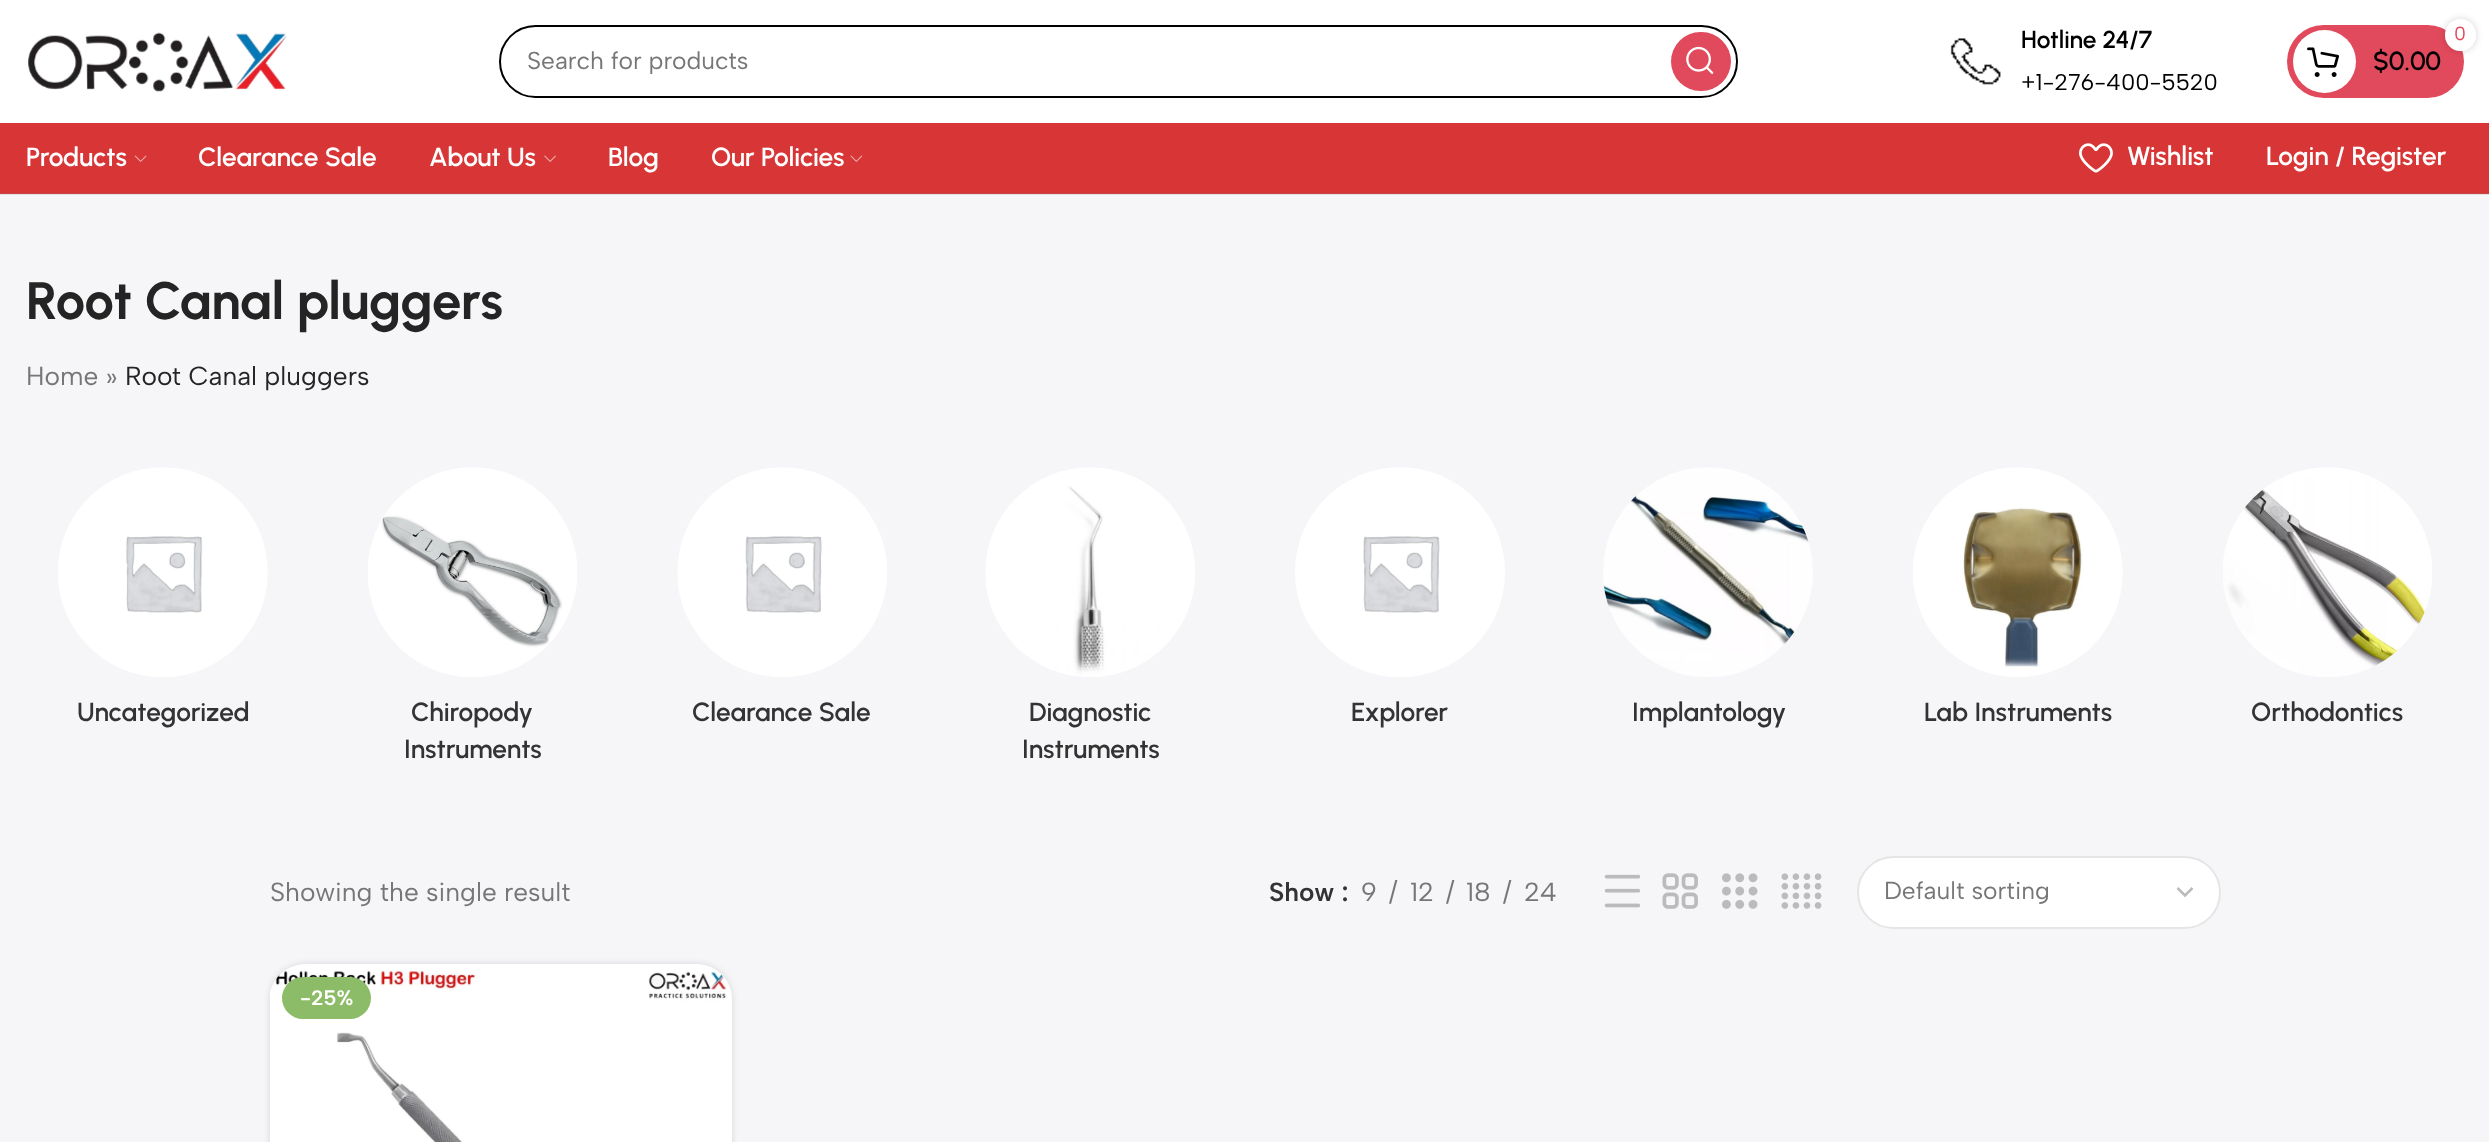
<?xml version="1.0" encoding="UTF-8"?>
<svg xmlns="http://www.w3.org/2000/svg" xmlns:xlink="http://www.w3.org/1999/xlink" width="2489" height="1142">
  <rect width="100%" height="100%" fill="#ffffff" />
  <image x="28" y="32" width="259" height="60" xlink:href="image1.png" />
  <rect x="500" y="26" width="1237" height="71" rx="35.5" fill="none" stroke="#000000" stroke-width="2" />
  <rect x="1671" y="32" width="60" height="59" rx="29.5" fill="#e14a5c" />
  <image x="1686" y="46" width="28" height="28" xlink:href="image2.png" />
  <image x="1950" y="38" width="51" height="47" xlink:href="image3.png" />
  <rect x="2287" y="25" width="177" height="73" rx="36.5" fill="#e14a5c" />
  <circle cx="2324.5" cy="61.5" r="31.5" fill="#ffffff" />
  <rect x="2445" y="19" width="31" height="32" rx="15.5" fill="#000000" fill-opacity="0.17" filter="blur(3.5px)" />
  <rect x="2445" y="19" width="31" height="32" rx="15.5" fill="#ffffff" />
  <image x="2307" y="47" width="32" height="30" xlink:href="image4.png" />
  <rect y="123" width="2489" height="70" fill="#d83636" />
  <rect y="193" width="2489" height="1" fill="#c74545" />
  <image x="134" y="155" width="13" height="7" xlink:href="image5.png" />
  <image x="544" y="155" width="12" height="7" xlink:href="image6.png" />
  <image x="850" y="155" width="13" height="7" xlink:href="image7.png" />
  <image x="2079" y="143" width="34" height="30" xlink:href="image8.png" />
  <rect y="195" width="2489" height="947" fill="#f6f5f8" />
  <rect y="194" width="2489" height="1" fill="#dfdee0" />
  <image x="58" y="467" width="210" height="210" xlink:href="image9.png" />
  <image x="368" y="467" width="209" height="210" xlink:href="image10.png" />
  <image x="677" y="467" width="210" height="210" xlink:href="image11.png" />
  <image x="985" y="467" width="210" height="210" xlink:href="image12.png" />
  <image x="1295" y="467" width="210" height="210" xlink:href="image13.png" />
  <image x="1603" y="467" width="210" height="210" xlink:href="image14.png" />
  <image x="1913" y="467" width="210" height="210" xlink:href="image15.png" />
  <image x="2223" y="467" width="209" height="210" xlink:href="image16.png" />
  <image x="1604" y="874" width="37" height="34" xlink:href="image17.png" />
  <image x="1662" y="873" width="36" height="36" xlink:href="image18.png" />
  <image x="1722" y="873" width="36" height="36" xlink:href="image19.png" />
  <image x="1781" y="873" width="41" height="36" xlink:href="image20.png" />
  <rect x="1857" y="856" width="364" height="73" rx="36.5" fill="#ffffff" />
  <path d="M 2177.5 888 l 7.5 7.5 l 7.5 -7.5" fill="none" stroke="#bbbbbb" stroke-width="2.5" />
  <rect x="1858" y="857" width="362" height="71" rx="35.5" fill="none" stroke="#000000" stroke-opacity="0.1" stroke-width="2" />
  <rect x="270" y="964" width="462" height="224" rx="35" fill="#000000" fill-opacity="0.12" filter="blur(3.5px)" />
  <rect x="270" y="964" width="462" height="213" rx="35" fill="#ffffff" />
  <image x="270" y="970" width="458" height="172" xlink:href="image21.png" />
  <rect x="282" y="977" width="89" height="42" rx="21" fill="#8cbc67" />
  <text x="527" y="69" style="font-family: Albert Sans; font-size: 24.5px; fill: #767676">Search for products</text>
  <text x="2021" y="48" style="font-family: Urbanist; font-size: 24.5px; font-weight: 600; fill: #000000">Hotline 24/7</text>
  <text x="2021" y="90" style="font-family: Albert Sans; font-size: 22.75px; fill: #000000">+1-276-400-5520</text>
  <text x="2454" y="40" style="font-family: Albert Sans; font-size: 19px; fill: #e14a5c">0</text>
  <text x="2373" y="70" style="font-family: Urbanist; font-size: 26.25px; font-weight: 600; fill: #000000">$0.00</text>
  <text x="26" y="166" style="font-family: Urbanist; font-size: 26.25px; font-weight: 600; fill: #ffffff">Products</text>
  <text x="198" y="166" style="font-family: Urbanist; font-size: 26.25px; font-weight: 600; fill: #ffffff">Clearance Sale</text>
  <text x="429" y="166" style="font-family: Urbanist; font-size: 26.25px; font-weight: 600; fill: #ffffff">About Us</text>
  <text x="608" y="166" style="font-family: Urbanist; font-size: 26.25px; font-weight: 600; fill: #ffffff">Blog</text>
  <text x="711" y="166" style="font-family: Urbanist; font-size: 26.25px; font-weight: 600; fill: #ffffff">Our Policies</text>
  <text x="2127" y="165" style="font-family: Urbanist; font-size: 26.25px; font-weight: 600; fill: #ffffff">Wishlist</text>
  <text x="2266" y="165" style="font-family: Urbanist; font-size: 26.25px; font-weight: 600; fill: #ffffff">Login / Register</text>
  <text x="26" y="319" style="font-family: Urbanist; font-size: 52.5px; font-weight: bold; fill: #242424">Root Canal pluggers</text>
  <text x="26" y="385" style="font-family: Albert Sans; font-size: 26.25px; fill: #767676">Home »</text>
  <text x="125" y="385" style="font-family: Albert Sans; font-size: 26.25px; fill: #242424">Root Canal pluggers</text>
  <text x="77" y="721" style="font-family: Urbanist; font-size: 26.25px; font-weight: 600; fill: #333333">Uncategorized</text>
  <text x="411" y="721" style="font-family: Urbanist; font-size: 26.25px; font-weight: 600; fill: #333333">Chiropody</text>
  <text x="404" y="758" style="font-family: Urbanist; font-size: 26.25px; font-weight: 600; fill: #333333">Instruments</text>
  <text x="692" y="721" style="font-family: Urbanist; font-size: 26.25px; font-weight: 600; fill: #333333">Clearance Sale</text>
  <text x="1029" y="721" style="font-family: Urbanist; font-size: 26.25px; font-weight: 600; fill: #333333">Diagnostic</text>
  <text x="1022" y="758" style="font-family: Urbanist; font-size: 26.25px; font-weight: 600; fill: #333333">Instruments</text>
  <text x="1351" y="721" style="font-family: Urbanist; font-size: 26.25px; font-weight: 600; fill: #333333">Explorer</text>
  <text x="1632" y="721" style="font-family: Urbanist; font-size: 26.25px; font-weight: 600; fill: #333333">Implantology</text>
  <text x="1924" y="721" style="font-family: Urbanist; font-size: 26.25px; font-weight: 600; fill: #333333">Lab Instruments</text>
  <text x="2251" y="721" style="font-family: Urbanist; font-size: 26.25px; font-weight: 600; fill: #333333">Orthodontics</text>
  <text x="270" y="901" style="font-family: Albert Sans; font-size: 26.25px; fill: #767676">Showing the single result</text>
  <text x="1269" y="901" style="font-family: Albert Sans; font-size: 26.25px; font-weight: 600; fill: #333333">Show :</text>
  <text x="1361" y="901" style="font-family: Albert Sans; font-size: 26.25px; fill: #767676">9</text>
  <text x="1389" y="901" style="font-family: Albert Sans; font-size: 26.25px; fill: #767676">/</text>
  <text x="1410" y="901" style="font-family: Albert Sans; font-size: 26.25px; fill: #767676">12</text>
  <text x="1446" y="901" style="font-family: Albert Sans; font-size: 26.25px; fill: #767676">/</text>
  <text x="1466" y="901" style="font-family: Albert Sans; font-size: 26.25px; fill: #767676">18</text>
  <text x="1503" y="901" style="font-family: Albert Sans; font-size: 26.25px; fill: #767676">/</text>
  <text x="1524" y="901" style="font-family: Albert Sans; font-size: 26.25px; fill: #767676">24</text>
  <text x="1884" y="899" style="font-family: Albert Sans; font-size: 24.5px; fill: #767676">Default sorting</text>
  <text x="300" y="1005" style="font-family: Albert Sans; font-size: 21px; font-weight: 600; fill: #ffffff">-25%</text>
</svg>
